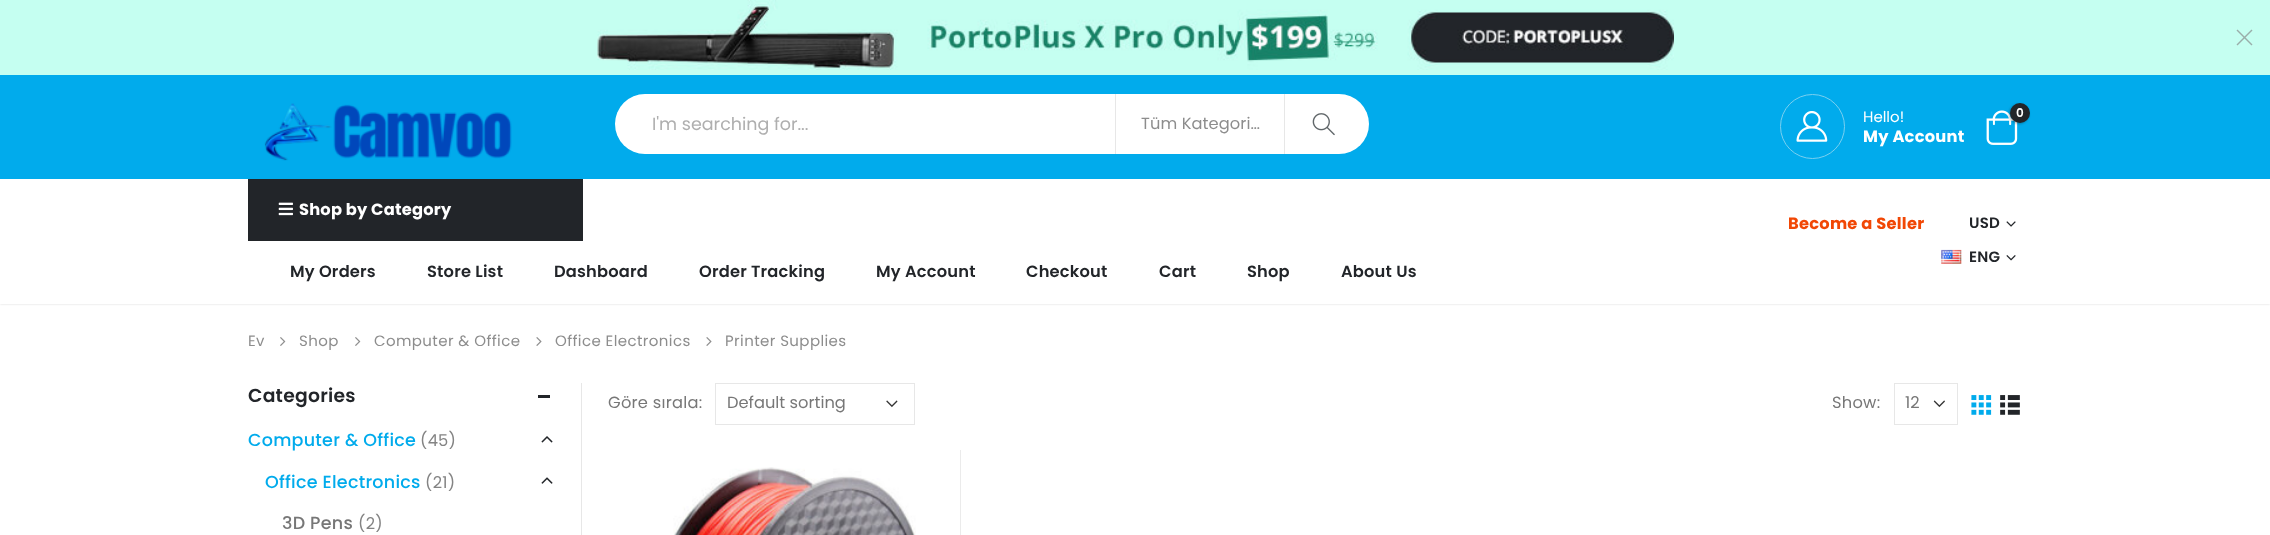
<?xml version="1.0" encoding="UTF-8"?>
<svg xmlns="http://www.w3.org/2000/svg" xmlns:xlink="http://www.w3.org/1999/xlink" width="2270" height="535">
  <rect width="100%" height="100%" fill="#ffffff" />
  <rect width="2270" height="75" fill="#c5fff1" />
  <image x="597" y="0" width="1077" height="70" xlink:href="image1.png" />
  <path d="M 2237.5 29.5 l 15 15 l -1 1 l -15 -15 z" fill="#9aaeaa" />
  <path d="M 2251.5 29.5 l 1 1 l -15 15 l -1 -1 z" fill="#9aaeaa" />
  <rect y="179" width="2270" height="125" fill="#000000" fill-opacity="0.15" filter="blur(1px)" />
  <rect y="75" width="2270" height="104" fill="#01abec" />
  <image x="264" y="103" width="248" height="58" xlink:href="image2.png" />
  <rect x="615" y="94" width="754" height="60" rx="30" fill="#ffffff" />
  <rect x="1284" y="94" width="1" height="60" fill="#e7e7e7" />
  <rect x="1115" y="94" width="1" height="60" fill="#e7e7e7" />
  <image x="1312" y="113" width="23" height="23" xlink:href="image3.png" />
  <circle cx="1812.5" cy="126.5" r="32" fill="none" stroke="#7bd0f0" />
  <image x="1796" y="111" width="32" height="31" xlink:href="image4.png" />
  <image x="1986" y="110" width="32" height="35" xlink:href="image5.png" />
  <rect x="2009" y="104" width="20" height="20" rx="10" fill="#000000" fill-opacity="0.3" filter="blur(1px)" />
  <circle cx="2020" cy="113" r="10" fill="#222529" />
  <rect y="179" width="2270" height="125" fill="#ffffff" />
  <rect x="248" y="179" width="335" height="62" fill="#222529" />
  <image x="278" y="202" width="15" height="14" xlink:href="image6.png" />
  <image x="2006" y="221" width="10" height="6" xlink:href="image7.png" />
  <image x="1941" y="249" width="21" height="15" xlink:href="image8.png" />
  <image x="2006" y="255" width="10" height="6" xlink:href="image9.png" />
  <image x="280" y="337" width="6" height="9" xlink:href="image10.png" />
  <image x="355" y="337" width="6" height="9" xlink:href="image10.png" />
  <image x="536" y="337" width="6" height="9" xlink:href="image11.png" />
  <image x="706" y="337" width="6" height="9" xlink:href="image11.png" />
  <rect x="581" y="383" width="1" height="152" fill="#e7e7e7" />
  <rect x="538" y="395" width="12" height="3" fill="#222529" />
  <image x="541" y="436" width="12" height="7" xlink:href="image12.png" />
  <image x="541" y="477" width="12" height="7" xlink:href="image13.png" />
  <image x="886" y="400" width="12" height="8" xlink:href="image14.png" />
  <rect x="715.5" y="383.5" width="199" height="41" fill="none" stroke="#e7e7e7" />
  <image x="1933" y="400" width="12" height="8" xlink:href="image15.png" />
  <rect x="1894.5" y="383.5" width="63" height="41" fill="none" stroke="#e7e7e7" />
  <image x="1971" y="395" width="21" height="20" xlink:href="image16.png" />
  <image x="2000" y="395" width="20" height="20" xlink:href="image17.png" />
  <path d="M 961 450 v 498 l -1 -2 v -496 z" fill="#ebebeb" />
  <image x="673" y="467" width="243" height="68" xlink:href="image18.png" />
  <text x="652" y="130" style="font-family: Poppins; font-size: 17.5px; fill: #afafaf">I'm searching for...</text>
  <text x="1141" y="129" style="font-family: Poppins; font-size: 16.25px; letter-spacing: 0.1px; fill: #8d8d8d">Tüm Kategori…</text>
  <text x="1863" y="122" style="font-family: Poppins; font-size: 15px; fill: #ffffff">Hello!</text>
  <text x="1863" y="142" style="font-family: Poppins; font-size: 16.25px; font-weight: bold; letter-spacing: 0.25px; fill: #ffffff">My Account</text>
  <text x="2016" y="117" style="font-family: Poppins; font-size: 12px; font-weight: 600; letter-spacing: 0.25px; fill: #ffffff">0</text>
  <text x="299" y="215" style="font-family: Poppins; font-size: 16.25px; font-weight: bold; letter-spacing: 0.2px; fill: #ffffff">Shop by Category</text>
  <text x="290" y="277" style="font-family: Poppins; font-size: 16.25px; font-weight: 600; letter-spacing: 0.2px; fill: #222529">My Orders</text>
  <text x="427" y="277" style="font-family: Poppins; font-size: 16.25px; font-weight: 600; letter-spacing: 0.2px; fill: #222529">Store List</text>
  <text x="554" y="277" style="font-family: Poppins; font-size: 16.25px; font-weight: 600; letter-spacing: 0.2px; fill: #222529">Dashboard</text>
  <text x="699" y="277" style="font-family: Poppins; font-size: 16.25px; font-weight: 600; letter-spacing: 0.2px; fill: #222529">Order Tracking</text>
  <text x="876" y="277" style="font-family: Poppins; font-size: 16.25px; font-weight: 600; letter-spacing: 0.2px; fill: #222529">My Account</text>
  <text x="1026" y="277" style="font-family: Poppins; font-size: 16.25px; font-weight: 600; letter-spacing: 0.2px; fill: #222529">Checkout</text>
  <text x="1159" y="277" style="font-family: Poppins; font-size: 16.25px; font-weight: 600; letter-spacing: 0.2px; fill: #222529">Cart</text>
  <text x="1247" y="277" style="font-family: Poppins; font-size: 16.25px; font-weight: 600; letter-spacing: 0.2px; fill: #222529">Shop</text>
  <text x="1341" y="277" style="font-family: Poppins; font-size: 16.25px; font-weight: 600; letter-spacing: 0.2px; fill: #222529">About Us</text>
  <text x="1788" y="229" style="font-family: Poppins; font-size: 16.25px; font-weight: bold; letter-spacing: 0.25px; fill: #f14705">Become a Seller</text>
  <text x="1969" y="228" style="font-family: Poppins; font-size: 15px; font-weight: 600; letter-spacing: 0.25px; fill: #222529">USD</text>
  <text x="1969" y="262" style="font-family: Poppins; font-size: 15px; font-weight: 600; letter-spacing: 0.25px; fill: #222529">ENG</text>
  <text x="248" y="346" style="font-family: Poppins; font-size: 15px; letter-spacing: 0.4px; fill: #8d8d8d">Ev</text>
  <text x="299" y="346" style="font-family: Poppins; font-size: 15px; letter-spacing: 0.4px; fill: #8d8d8d">Shop</text>
  <text x="374" y="346" style="font-family: Poppins; font-size: 15px; letter-spacing: 0.4px; fill: #8d8d8d">Computer &amp; Office</text>
  <text x="555" y="346" style="font-family: Poppins; font-size: 15px; letter-spacing: 0.4px; fill: #8d8d8d">Office Electronics</text>
  <text x="725" y="346" style="font-family: Poppins; font-size: 15px; letter-spacing: 0.4px; fill: #8d8d8d">Printer Supplies</text>
  <text x="248" y="402" style="font-family: Poppins; font-size: 18.75px; font-weight: 600; letter-spacing: 0.25px; fill: #222529">Categories</text>
  <text x="248" y="446" style="font-family: Poppins; font-size: 17.5px; font-weight: 500; letter-spacing: 0.25px; fill: #01abec">Computer &amp; Office</text>
  <text x="420" y="446" style="font-family: Poppins; font-size: 16.25px; letter-spacing: 0.25px; fill: #848484">(45)</text>
  <text x="265" y="488" style="font-family: Poppins; font-size: 17.5px; font-weight: 500; letter-spacing: 0.25px; fill: #01abec">Office Electronics</text>
  <text x="425" y="488" style="font-family: Poppins; font-size: 16.25px; letter-spacing: 0.25px; fill: #848484">(21)</text>
  <text x="282" y="529" style="font-family: Poppins; font-size: 17.5px; font-weight: 500; letter-spacing: 0.25px; fill: #777777">3D Pens</text>
  <text x="358" y="529" style="font-family: Poppins; font-size: 16.25px; letter-spacing: 0.25px; fill: #848484">(2)</text>
  <text x="608" y="408" style="font-family: Poppins; font-size: 16.25px; letter-spacing: 0.25px; fill: #777777">Göre sırala:</text>
  <text x="727" y="408" style="font-family: Poppins; font-size: 16.25px; fill: #777777">Default sorting</text>
  <text x="1832" y="408" style="font-family: Poppins; font-size: 16.25px; letter-spacing: 0.25px; fill: #777777">Show:</text>
  <text x="1905" y="408" style="font-family: Poppins; font-size: 16.25px; fill: #777777">12</text>
</svg>
